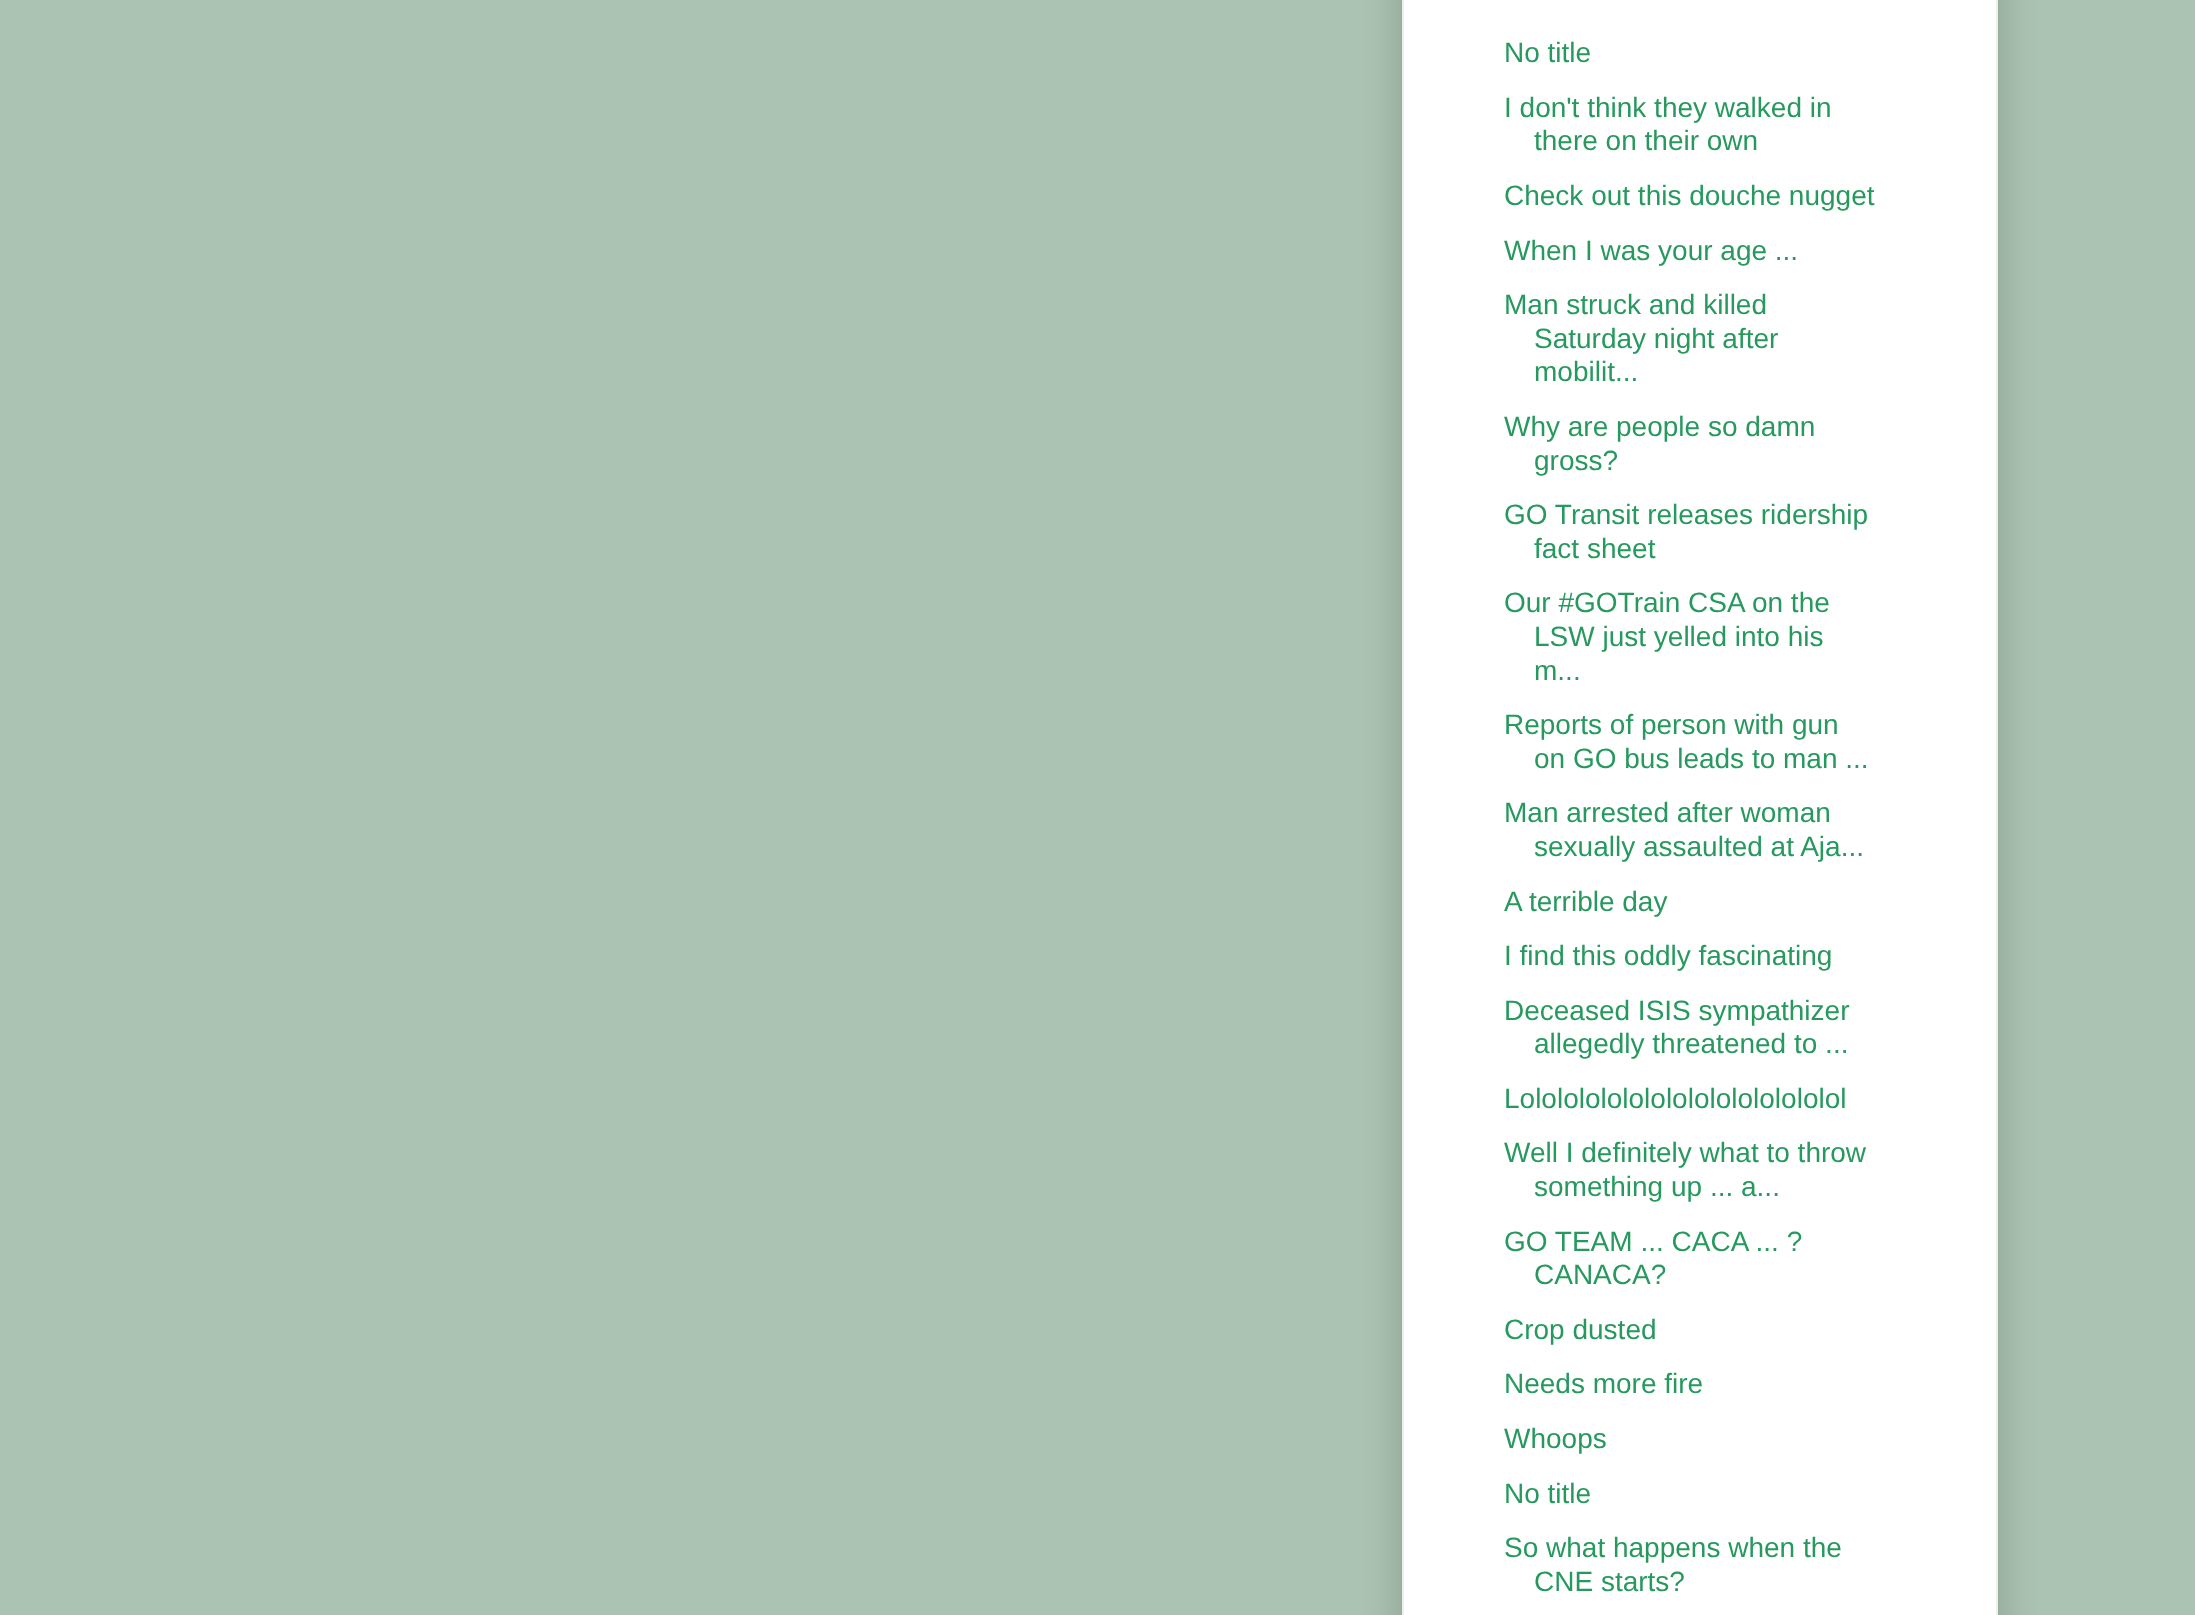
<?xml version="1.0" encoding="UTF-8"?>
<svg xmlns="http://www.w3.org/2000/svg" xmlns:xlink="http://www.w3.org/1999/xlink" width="2195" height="1615">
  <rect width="100%" height="100%" fill="#abc3b2" />
  <rect x="1402" y="-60" width="596" height="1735" fill="#000000" fill-opacity="0.2" filter="blur(20px)" />
  <rect x="1403" y="-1" width="594" height="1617" fill="#ffffff" stroke="#eeeeee" stroke-width="2" />
  <text x="1504" y="62" style="font-family: Liberation Sans; font-size: 28px; fill: #27995f">No title</text>
  <text x="1504" y="117" style="font-family: Liberation Sans; font-size: 28px; fill: #27995f">I don't think they walked in</text>
  <text x="1534" y="150" style="font-family: Liberation Sans; font-size: 28px; fill: #27995f">there on their own</text>
  <text x="1504" y="205" style="font-family: Liberation Sans; font-size: 28px; fill: #27995f">Check out this douche nugget</text>
  <text x="1504" y="260" style="font-family: Liberation Sans; font-size: 28px; fill: #27995f">When I was your age ...</text>
  <text x="1504" y="314" style="font-family: Liberation Sans; font-size: 28px; fill: #27995f">Man struck and killed</text>
  <text x="1534" y="348" style="font-family: Liberation Sans; font-size: 28px; fill: #27995f">Saturday night after</text>
  <text x="1534" y="381" style="font-family: Liberation Sans; font-size: 28px; fill: #27995f">mobilit...</text>
  <text x="1504" y="436" style="font-family: Liberation Sans; font-size: 28px; fill: #27995f">Why are people so damn</text>
  <text x="1534" y="470" style="font-family: Liberation Sans; font-size: 28px; fill: #27995f">gross?</text>
  <text x="1504" y="524" style="font-family: Liberation Sans; font-size: 28px; fill: #27995f">GO Transit releases ridership</text>
  <text x="1534" y="558" style="font-family: Liberation Sans; font-size: 28px; fill: #27995f">fact sheet</text>
  <text x="1504" y="612" style="font-family: Liberation Sans; font-size: 28px; fill: #27995f">Our #GOTrain CSA on the</text>
  <text x="1534" y="646" style="font-family: Liberation Sans; font-size: 28px; fill: #27995f">LSW just yelled into his</text>
  <text x="1534" y="680" style="font-family: Liberation Sans; font-size: 28px; fill: #27995f">m...</text>
  <text x="1504" y="734" style="font-family: Liberation Sans; font-size: 28px; fill: #27995f">Reports of person with gun</text>
  <text x="1534" y="768" style="font-family: Liberation Sans; font-size: 28px; fill: #27995f">on GO bus leads to man ...</text>
  <text x="1504" y="822" style="font-family: Liberation Sans; font-size: 28px; fill: #27995f">Man arrested after woman</text>
  <text x="1534" y="856" style="font-family: Liberation Sans; font-size: 28px; fill: #27995f">sexually assaulted at Aja...</text>
  <text x="1504" y="911" style="font-family: Liberation Sans; font-size: 28px; fill: #27995f">A terrible day</text>
  <text x="1504" y="965" style="font-family: Liberation Sans; font-size: 28px; fill: #27995f">I find this oddly fascinating</text>
  <text x="1504" y="1020" style="font-family: Liberation Sans; font-size: 28px; fill: #27995f">Deceased ISIS sympathizer</text>
  <text x="1534" y="1053" style="font-family: Liberation Sans; font-size: 28px; fill: #27995f">allegedly threatened to ...</text>
  <text x="1504" y="1108" style="font-family: Liberation Sans; font-size: 28px; fill: #27995f">Lololololololololololololololol</text>
  <text x="1504" y="1162" style="font-family: Liberation Sans; font-size: 28px; fill: #27995f">Well I definitely what to throw</text>
  <text x="1534" y="1196" style="font-family: Liberation Sans; font-size: 28px; fill: #27995f">something up ... a...</text>
  <text x="1504" y="1251" style="font-family: Liberation Sans; font-size: 28px; fill: #27995f">GO TEAM ... CACA ... ?</text>
  <text x="1534" y="1284" style="font-family: Liberation Sans; font-size: 28px; fill: #27995f">CANACA?</text>
  <text x="1504" y="1339" style="font-family: Liberation Sans; font-size: 28px; fill: #27995f">Crop dusted</text>
  <text x="1504" y="1393" style="font-family: Liberation Sans; font-size: 28px; fill: #27995f">Needs more fire</text>
  <text x="1504" y="1448" style="font-family: Liberation Sans; font-size: 28px; fill: #27995f">Whoops</text>
  <text x="1504" y="1503" style="font-family: Liberation Sans; font-size: 28px; fill: #27995f">No title</text>
  <text x="1504" y="1557" style="font-family: Liberation Sans; font-size: 28px; fill: #27995f">So what happens when the</text>
  <text x="1534" y="1591" style="font-family: Liberation Sans; font-size: 28px; fill: #27995f">CNE starts?</text>
</svg>
